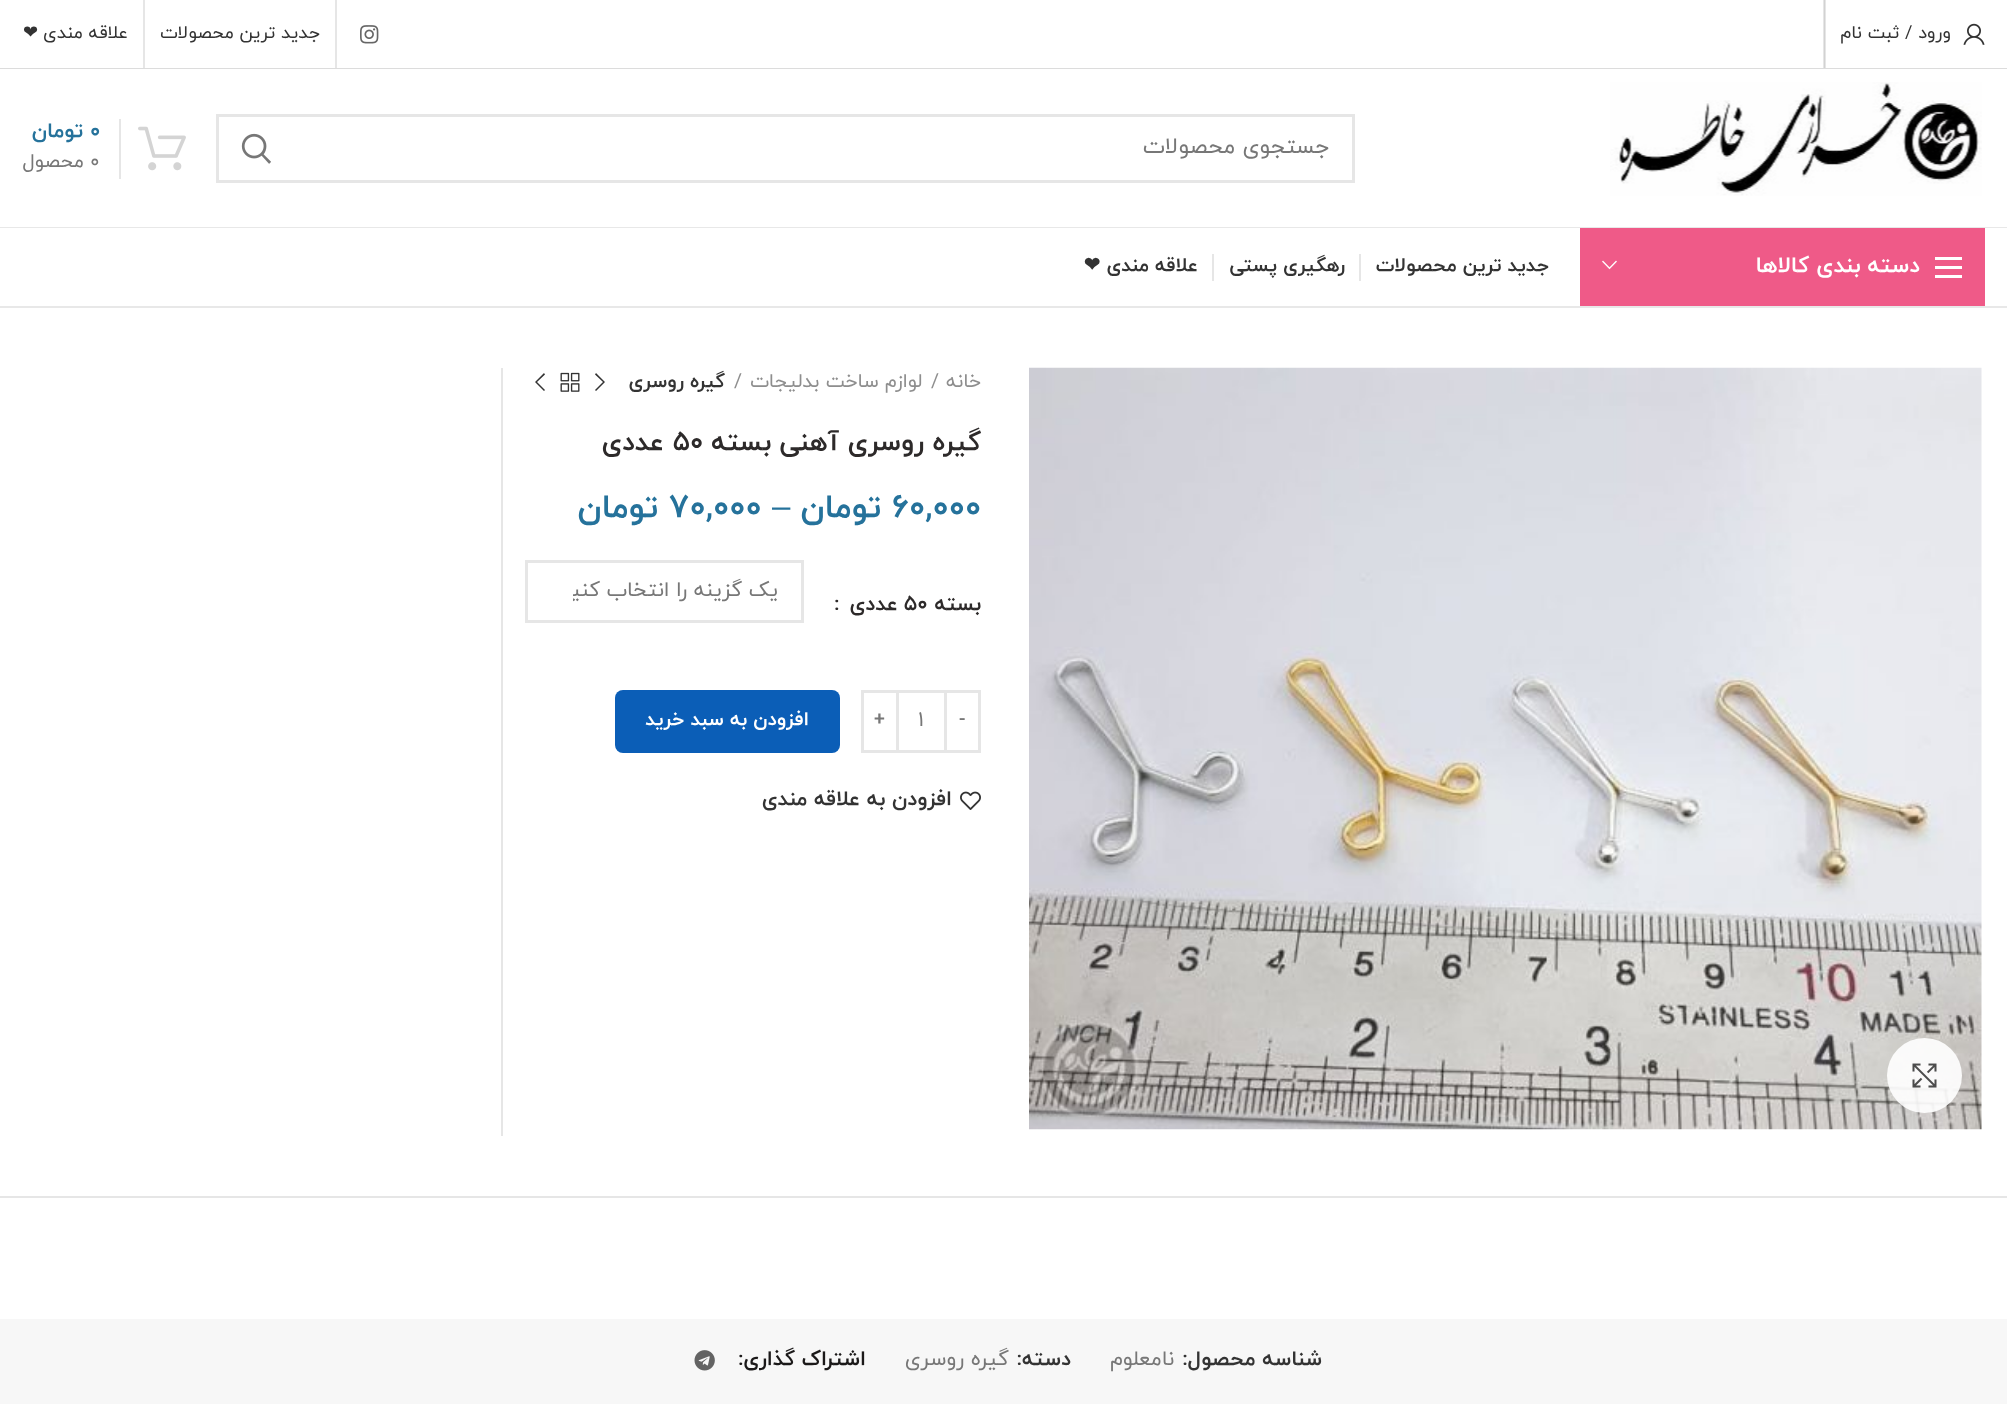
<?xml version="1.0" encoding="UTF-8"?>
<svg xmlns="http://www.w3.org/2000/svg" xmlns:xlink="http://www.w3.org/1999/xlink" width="2007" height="1404">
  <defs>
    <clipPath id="clip1"><rect x="573" y="576" width="206" height="30" /></clipPath>
  </defs>
  <rect width="100%" height="100%" fill="#ffffff" />
  <rect x="1823" width="1" height="68" fill="#e6e6e6" />
  <rect y="68" width="2007" height="1" fill="#dcdcdc" />
  <image x="1963" y="23" width="22" height="22" xlink:href="image1.png" />
  <rect x="1825" width="1" height="68" fill="#e6e6e6" />
  <rect x="1824" width="1" height="68" fill="#d2d2d2" />
  <image x="360" y="25" width="19" height="19" xlink:href="image2.png" />
  <rect x="335" width="2" height="68" fill="#e6e6e6" />
  <rect x="143" width="2" height="68" fill="#e6e6e6" />
  <rect y="227" width="2007" height="1" fill="#e8e8e8" />
  <image x="1610" y="82" width="372" height="114" xlink:href="image3.png" />
  <rect x="217.5" y="115.5" width="1136" height="66" fill="none" stroke="#e6e6e6" stroke-width="3" />
  <image x="241" y="133" width="30" height="31" xlink:href="image4.png" />
  <image x="138" y="126" width="48" height="45" xlink:href="image5.png" />
  <rect x="119" y="119" width="2" height="60" fill="#e6e6e6" />
  <rect y="306" width="2007" height="2" fill="#e8e8e8" />
  <rect x="1580" y="228" width="405" height="78" fill="#ef5a88" />
  <rect x="1935" y="266" width="27" height="3" fill="#ffffff" />
  <rect x="1935" y="257" width="27" height="3" fill="#ffffff" />
  <rect x="1935" y="275" width="27" height="3" fill="#ffffff" />
  <image x="1602" y="260" width="15" height="10" xlink:href="image6.png" />
  <rect x="1359" y="254" width="2" height="27" fill="#e6e6e6" />
  <rect x="1212" y="254" width="2" height="27" fill="#e6e6e6" />
  <image x="1029" y="367" width="953" height="763" xlink:href="image7.png" />
  <circle cx="1924.5" cy="1075.5" r="37.5" fill="#ffffff" fill-opacity="0.9" />
  <image x="1912" y="1063" width="25" height="25" xlink:href="image8.png" />
  <path d="M 596 373 l 9 9 l -9 9 l -1 -1 l 8 -8 l -8 -7.5 z" fill="#333333" />
  <image x="560" y="372" width="20" height="20" xlink:href="image9.png" />
  <path d="M 545 374.5 l -8 7.5 l 8 8 l -1 1 l -9 -9 l 9 -9 z" fill="#333333" />
  <rect x="526.5" y="561.5" width="276" height="60" fill="none" stroke="#e6e6e6" stroke-width="3" />
  <rect x="945.5" y="691.5" width="34" height="60" fill="none" stroke="#e6e6e6" stroke-width="3" />
  <rect x="899" y="690" width="45" height="3" fill="#e6e6e6" />
  <rect x="899" y="750" width="45" height="3" fill="#e6e6e6" />
  <rect x="862.5" y="691.5" width="35" height="60" fill="none" stroke="#e6e6e6" stroke-width="3" />
  <rect x="615" y="690" width="225" height="63" rx="8" fill="#0b5eb7" />
  <image x="960" y="791" width="21" height="19" xlink:href="image10.png" />
  <rect x="501" y="368" width="2" height="768" fill="#e6e6e6" />
  <rect y="1196" width="2007" height="2" fill="#e6e6e6" />
  <rect y="1319" width="2007" height="85" fill="#f7f7f7" />
  <image x="694" y="1350" width="21" height="21" xlink:href="image11.png" />
  <text x="1951" y="38" style="font-family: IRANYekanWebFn; font-size: 18px; direction: rtl; fill: #333333">ورود / ثبت نام</text>
  <text x="320" y="38" style="font-family: IRANYekanWebFn; font-size: 18px; direction: rtl; fill: #333333">جدید ترین محصولات</text>
  <text x="128" y="38" style="font-family: IRANYekanWebFn; font-size: 18px; direction: rtl; fill: #333333">علاقه مندی</text>
  <text x="38" y="38" style="font-family: DejaVu Sans; font-size: 18px; direction: rtl; fill: #333333">❤</text>
  <text x="1329" y="153" style="font-family: IRANYekanWebFn; font-size: 22.5px; direction: rtl; fill: #777777">جستجوی محصولات</text>
  <text x="90" y="137" style="font-family: IRANYekanWebFn; font-size: 21px; font-weight: bold; fill: #25729b">0</text>
  <text x="83" y="137" style="font-family: IRANYekanWebFn; font-size: 21px; font-weight: bold; direction: rtl; fill: #25729b">تومان</text>
  <text x="90" y="167" style="font-family: IRANYekanWebFn; font-size: 19.5px; fill: #777777">0</text>
  <text x="84" y="167" style="font-family: IRANYekanWebFn; font-size: 19.5px; direction: rtl; fill: #777777">محصول</text>
  <text x="1920" y="272" style="font-family: IRANYekanWebFn; font-size: 22.5px; font-weight: bold; direction: rtl; fill: #ffffff">دسته بندی کالاها</text>
  <text x="1549" y="271" style="font-family: IRANYekanWebFn; font-size: 19.5px; font-weight: bold; direction: rtl; fill: #333333">جدید ترین محصولات</text>
  <text x="1345" y="271" style="font-family: IRANYekanWebFn; font-size: 19.5px; font-weight: bold; direction: rtl; fill: #333333">رهگیری پستی</text>
  <text x="1198" y="271" style="font-family: IRANYekanWebFn; font-size: 19.5px; font-weight: bold; direction: rtl; fill: #333333">علاقه مندی</text>
  <text x="1100" y="271" style="font-family: DejaVu Sans; font-size: 19.5px; font-weight: bold; direction: rtl; fill: #333333">❤</text>
  <text x="981" y="387" style="font-family: IRANYekanWebFn; font-size: 19.5px; direction: rtl; fill: #8e8e8e">خانه</text>
  <text x="931" y="387" style="font-family: IRANYekanWebFn; font-size: 19.5px; fill: #8e8e8e">/</text>
  <text x="922" y="387" style="font-family: IRANYekanWebFn; font-size: 19.5px; direction: rtl; fill: #8e8e8e">لوازم ساخت بدلیجات</text>
  <text x="734" y="387" style="font-family: IRANYekanWebFn; font-size: 19.5px; fill: #8e8e8e">/</text>
  <text x="725" y="387" style="font-family: IRANYekanWebFn; font-size: 19.5px; font-weight: bold; direction: rtl; fill: #333333">گیره روسری</text>
  <text x="981" y="450" style="font-family: IRANYekanWebFn; font-size: 27px; font-weight: bold; direction: rtl; fill: #2d2a2a">گیره روسری آهنی بسته</text>
  <text x="673" y="450" style="font-family: IRANYekanWebFn; font-size: 27px; font-weight: bold; fill: #2d2a2a">۵۰</text>
  <text x="664" y="450" style="font-family: IRANYekanWebFn; font-size: 27px; font-weight: bold; direction: rtl; fill: #2d2a2a">عددی</text>
  <text x="892" y="517" style="font-family: IRANYekanWebFn; font-size: 33px; font-weight: bold; fill: #25729b">60,000</text>
  <text x="881" y="517" style="font-family: IRANYekanWebFn; font-size: 33px; font-weight: bold; direction: rtl; fill: #25729b">تومان</text>
  <text x="772" y="517" style="font-family: Liberation Sans; font-size: 33px; fill: #25729b">–</text>
  <text x="669" y="517" style="font-family: IRANYekanWebFn; font-size: 33px; font-weight: bold; fill: #25729b">70,000</text>
  <text x="658" y="517" style="font-family: IRANYekanWebFn; font-size: 33px; font-weight: bold; direction: rtl; fill: #25729b">تومان</text>
  <g clip-path="url(#clip1)">
    <text x="778" y="596" style="font-family: IRANYekanWebFn; font-size: 21px; direction: rtl; fill: #777777">یک گزینه را انتخاب کنید</text>
  </g>
  <text x="981" y="610" style="font-family: IRANYekanWebFn; font-size: 21px; font-weight: bold; direction: rtl; fill: #2d2a2a">بسته</text>
  <text x="904" y="610" style="font-family: IRANYekanWebFn; font-size: 21px; font-weight: bold; fill: #2d2a2a">50</text>
  <text x="898" y="610" style="font-family: IRANYekanWebFn; font-size: 21px; font-weight: bold; direction: rtl; fill: #2d2a2a">عددی</text>
  <text x="834" y="610" style="font-family: IRANYekanWebFn; font-size: 21px; font-weight: bold; fill: #2d2a2a">:</text>
  <text x="959" y="725" style="font-family: IRANYekanWebFn; font-size: 19.5px; font-weight: bold; fill: #777777">-</text>
  <text x="918" y="726" style="font-family: IRANYekanWebFn; font-size: 21px; fill: #777777">1</text>
  <text x="874" y="725" style="font-family: IRANYekanWebFn; font-size: 19.5px; font-weight: bold; fill: #777777">+</text>
  <text x="809" y="725" style="font-family: IRANYekanWebFn; font-size: 19.5px; font-weight: bold; direction: rtl; fill: #ffffff">افزودن به سبد خرید</text>
  <text x="952" y="805" style="font-family: IRANYekanWebFn; font-size: 21px; font-weight: bold; direction: rtl; fill: #333333">افزودن به علاقه مندی</text>
  <text x="1322" y="1365" style="font-family: IRANYekanWebFn; font-size: 21px; font-weight: bold; direction: rtl; fill: #333333">شناسه محصول:</text>
  <text x="1174" y="1365" style="font-family: IRANYekanWebFn; font-size: 21px; direction: rtl; fill: #777777">نامعلوم</text>
  <text x="1071" y="1365" style="font-family: IRANYekanWebFn; font-size: 21px; font-weight: bold; direction: rtl; fill: #333333">دسته:</text>
  <text x="1009" y="1365" style="font-family: IRANYekanWebFn; font-size: 21px; direction: rtl; fill: #777777">گیره روسری</text>
  <text x="866" y="1365" style="font-family: IRANYekanWebFn; font-size: 21px; font-weight: bold; direction: rtl; fill: #1b1919">اشتراک گذاری</text>
  <text x="738" y="1365" style="font-family: IRANYekanWebFn; font-size: 21px; font-weight: bold; fill: #1b1919">:</text>
</svg>
